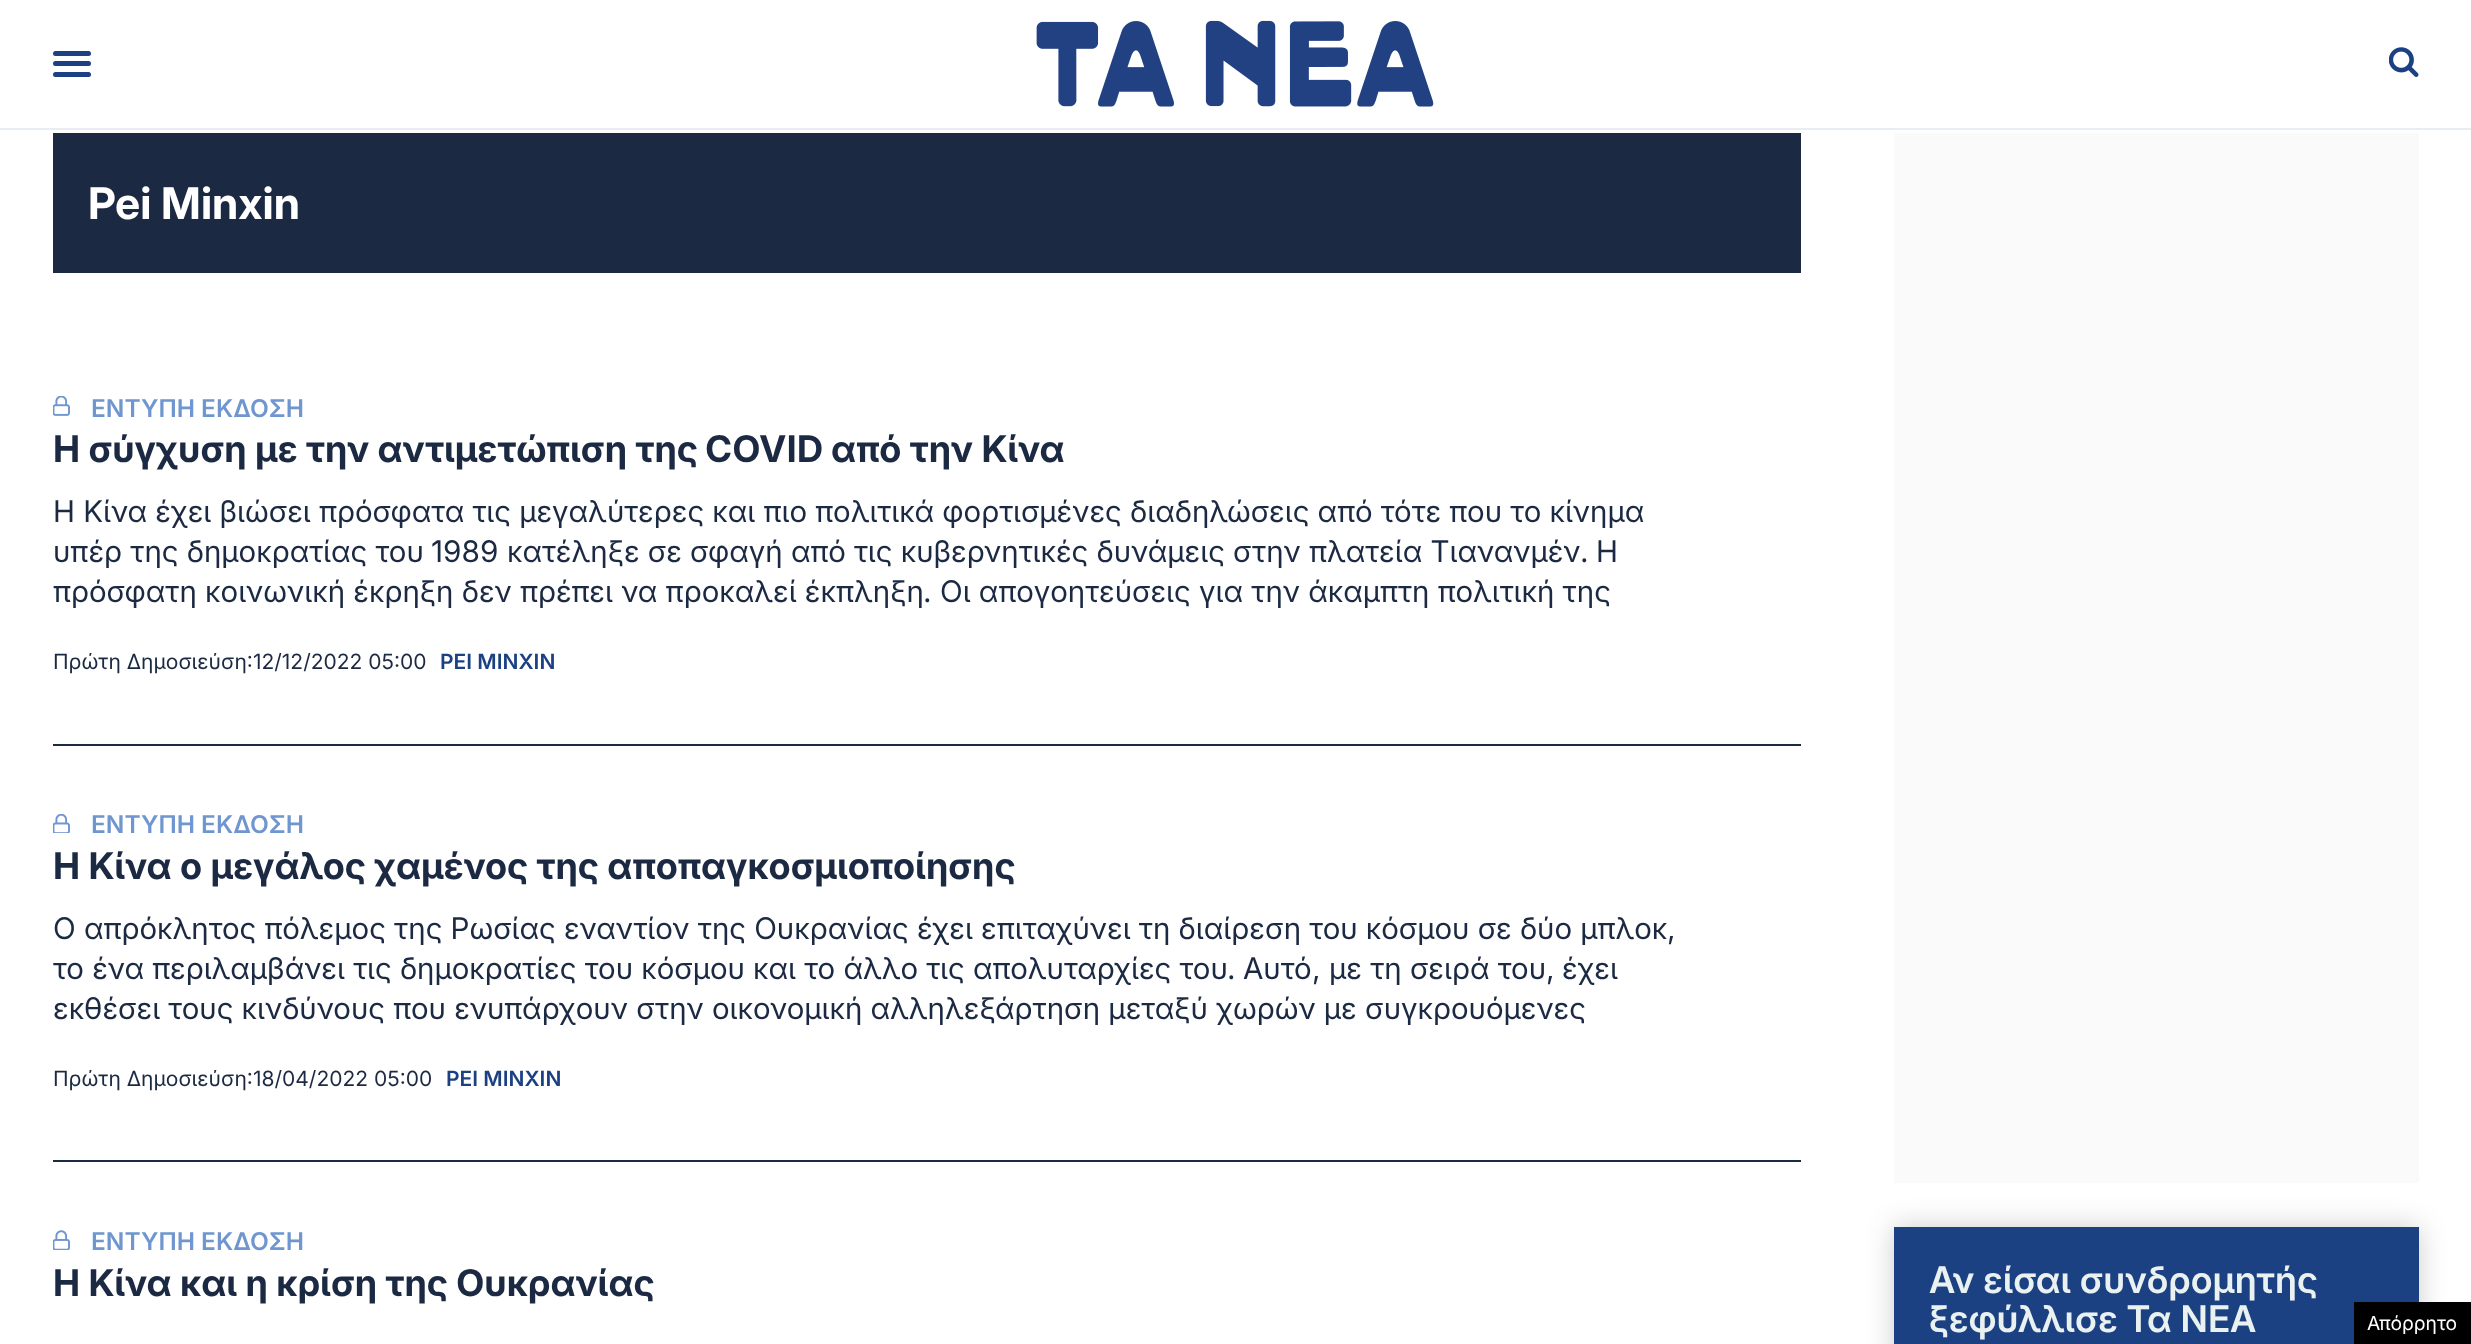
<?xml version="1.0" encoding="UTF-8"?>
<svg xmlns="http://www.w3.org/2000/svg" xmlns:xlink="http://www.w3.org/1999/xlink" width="2471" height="1344">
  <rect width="100%" height="100%" fill="#ffffff" />
  <image x="1036" y="20" width="398" height="87" xlink:href="image1.png" />
  <rect y="128" width="2471" height="2" fill="#e8ecf3" />
  <rect x="53" y="51" width="38" height="5" rx="2.5" fill="#1c4182" />
  <rect x="53" y="61" width="38" height="5" rx="2.5" fill="#1c4182" />
  <rect x="53" y="72" width="38" height="5" rx="2.5" fill="#1c4182" />
  <image x="2389" y="47" width="30" height="30" xlink:href="image2.png" />
  <rect x="53" y="133" width="1748" height="140" fill="#1b2942" />
  <rect x="53" y="744" width="1748" height="2" fill="#1b2942" />
  <image x="53" y="396" width="17" height="20" xlink:href="image3.png" />
  <rect x="53" y="1160" width="1748" height="2" fill="#1b2942" />
  <image x="53" y="814" width="17" height="19" xlink:href="image4.png" />
  <image x="53" y="1230" width="17" height="20" xlink:href="image5.png" />
  <rect x="1894" y="133" width="525" height="1050" fill="#fafafa" />
  <rect x="1894" y="1227" width="525" height="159" fill="#000000" fill-opacity="0.2" filter="blur(14px)" />
  <rect x="1894" y="1227" width="525" height="117" fill="#1c4182" />
  <rect x="2354" y="1302" width="117" height="42" fill="#000000" />
  <text x="88" y="219" style="font-family: Inter; font-size: 43.75px; font-weight: bold; fill: #ffffff">Pei Minxin</text>
  <text x="91" y="417" style="font-family: Inter; font-size: 24.5px; font-weight: 600; fill: #7096cf">ΕΝΤΥΠΗ ΕΚΔΟΣΗ</text>
  <text x="53" y="462" style="font-family: 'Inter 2'; font-size: 36.75px; font-weight: bold; fill: #1b2942">Η σύγχυση με την αντιμετώπιση της</text>
  <text x="705" y="462" style="font-family: 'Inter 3'; font-size: 36.75px; font-weight: bold; fill: #1b2942">COVID</text>
  <text x="831" y="462" style="font-family: 'Inter 2'; font-size: 36.75px; font-weight: bold; fill: #1b2942">από την Κίνα</text>
  <text x="53" y="522" style="font-family: 'Inter 2'; font-size: 29.75px; fill: #1b2942">Η Κίνα έχει βιώσει πρόσφατα τις μεγαλύτερες και πιο πολιτικά φορτισμένες διαδηλώσεις από τότε που το κίνημα</text>
  <text x="53" y="562" style="font-family: 'Inter 2'; font-size: 29.75px; fill: #1b2942">υπέρ της δημοκρατίας του</text>
  <text x="431" y="562" style="font-family: Inter; font-size: 29.75px; fill: #1b2942">1989</text>
  <text x="507" y="562" style="font-family: 'Inter 2'; font-size: 29.75px; fill: #1b2942">κατέληξε σε σφαγή από τις κυβερνητικές δυνάμεις στην πλατεία Τιανανμέν</text>
  <text x="1580" y="562" style="font-family: Inter; font-size: 29.75px; fill: #1b2942">.</text>
  <text x="1596" y="562" style="font-family: 'Inter 2'; font-size: 29.75px; fill: #1b2942">Η</text>
  <text x="53" y="602" style="font-family: 'Inter 2'; font-size: 29.75px; fill: #1b2942">πρόσφατη κοινωνική έκρηξη δεν πρέπει να προκαλεί έκπληξη</text>
  <text x="923" y="602" style="font-family: Inter; font-size: 29.75px; fill: #1b2942">.</text>
  <text x="940" y="602" style="font-family: 'Inter 2'; font-size: 29.75px; fill: #1b2942">Οι απογοητεύσεις για την άκαμπτη πολιτική της</text>
  <text x="53" y="669" style="font-family: Inter; font-size: 21px; fill: #1b2942">Πρώτη Δημοσιεύση:12/12/2022 05:00</text>
  <text x="440" y="669" style="font-family: Inter; font-size: 21px; font-weight: 600; fill: #1c4182">PEI MINXIN</text>
  <text x="91" y="833" style="font-family: Inter; font-size: 24.5px; font-weight: 600; fill: #7096cf">ΕΝΤΥΠΗ ΕΚΔΟΣΗ</text>
  <text x="53" y="879" style="font-family: 'Inter 2'; font-size: 36.75px; font-weight: bold; fill: #1b2942">Η Κίνα ο μεγάλος χαμένος της αποπαγκοσμιοποίησης</text>
  <text x="53" y="939" style="font-family: 'Inter 2'; font-size: 29.75px; fill: #1b2942">Ο απρόκλητος πόλεμος της Ρωσίας εναντίον της Ουκρανίας έχει επιταχύνει τη διαίρεση του κόσμου σε δύο μπλοκ</text>
  <text x="1667" y="939" style="font-family: Inter; font-size: 29.75px; fill: #1b2942">,</text>
  <text x="53" y="979" style="font-family: 'Inter 2'; font-size: 29.75px; fill: #1b2942">το ένα περιλαμβάνει τις δημοκρατίες του κόσμου και το άλλο τις απολυταρχίες του</text>
  <text x="1227" y="979" style="font-family: Inter; font-size: 29.75px; fill: #1b2942">.</text>
  <text x="1243" y="979" style="font-family: 'Inter 2'; font-size: 29.75px; fill: #1b2942">Αυτό</text>
  <text x="1312" y="979" style="font-family: Inter; font-size: 29.75px; fill: #1b2942">,</text>
  <text x="1329" y="979" style="font-family: 'Inter 2'; font-size: 29.75px; fill: #1b2942">με τη σειρά του</text>
  <text x="1546" y="979" style="font-family: Inter; font-size: 29.75px; fill: #1b2942">,</text>
  <text x="1562" y="979" style="font-family: 'Inter 2'; font-size: 29.75px; fill: #1b2942">έχει</text>
  <text x="53" y="1019" style="font-family: 'Inter 2'; font-size: 29.75px; fill: #1b2942">εκθέσει τους κινδύνους που ενυπάρχουν στην οικονομική αλληλεξάρτηση μεταξύ χωρών με συγκρουόμενες</text>
  <text x="53" y="1086" style="font-family: Inter; font-size: 21px; fill: #1b2942">Πρώτη Δημοσιεύση:18/04/2022 05:00</text>
  <text x="446" y="1086" style="font-family: Inter; font-size: 21px; font-weight: 600; fill: #1c4182">PEI MINXIN</text>
  <text x="91" y="1250" style="font-family: Inter; font-size: 24.5px; font-weight: 600; fill: #7096cf">ΕΝΤΥΠΗ ΕΚΔΟΣΗ</text>
  <text x="53" y="1296" style="font-family: 'Inter 2'; font-size: 36.75px; font-weight: bold; fill: #1b2942">Η Κίνα και η κρίση της Ουκρανίας</text>
  <text x="1929" y="1293" style="font-family: 'Inter 2'; font-size: 36.75px; font-weight: 600; fill: #eaf1f1">Αν είσαι συνδρομητής</text>
  <text x="1929" y="1332" style="font-family: 'Inter 2'; font-size: 36.75px; font-weight: 600; fill: #eaf1f1">ξεφύλλισε Τα ΝΕΑ</text>
  <text x="2367" y="1330" style="font-family: Inter; font-size: 19.25px; fill: #ffffff">Απόρρητο</text>
</svg>
